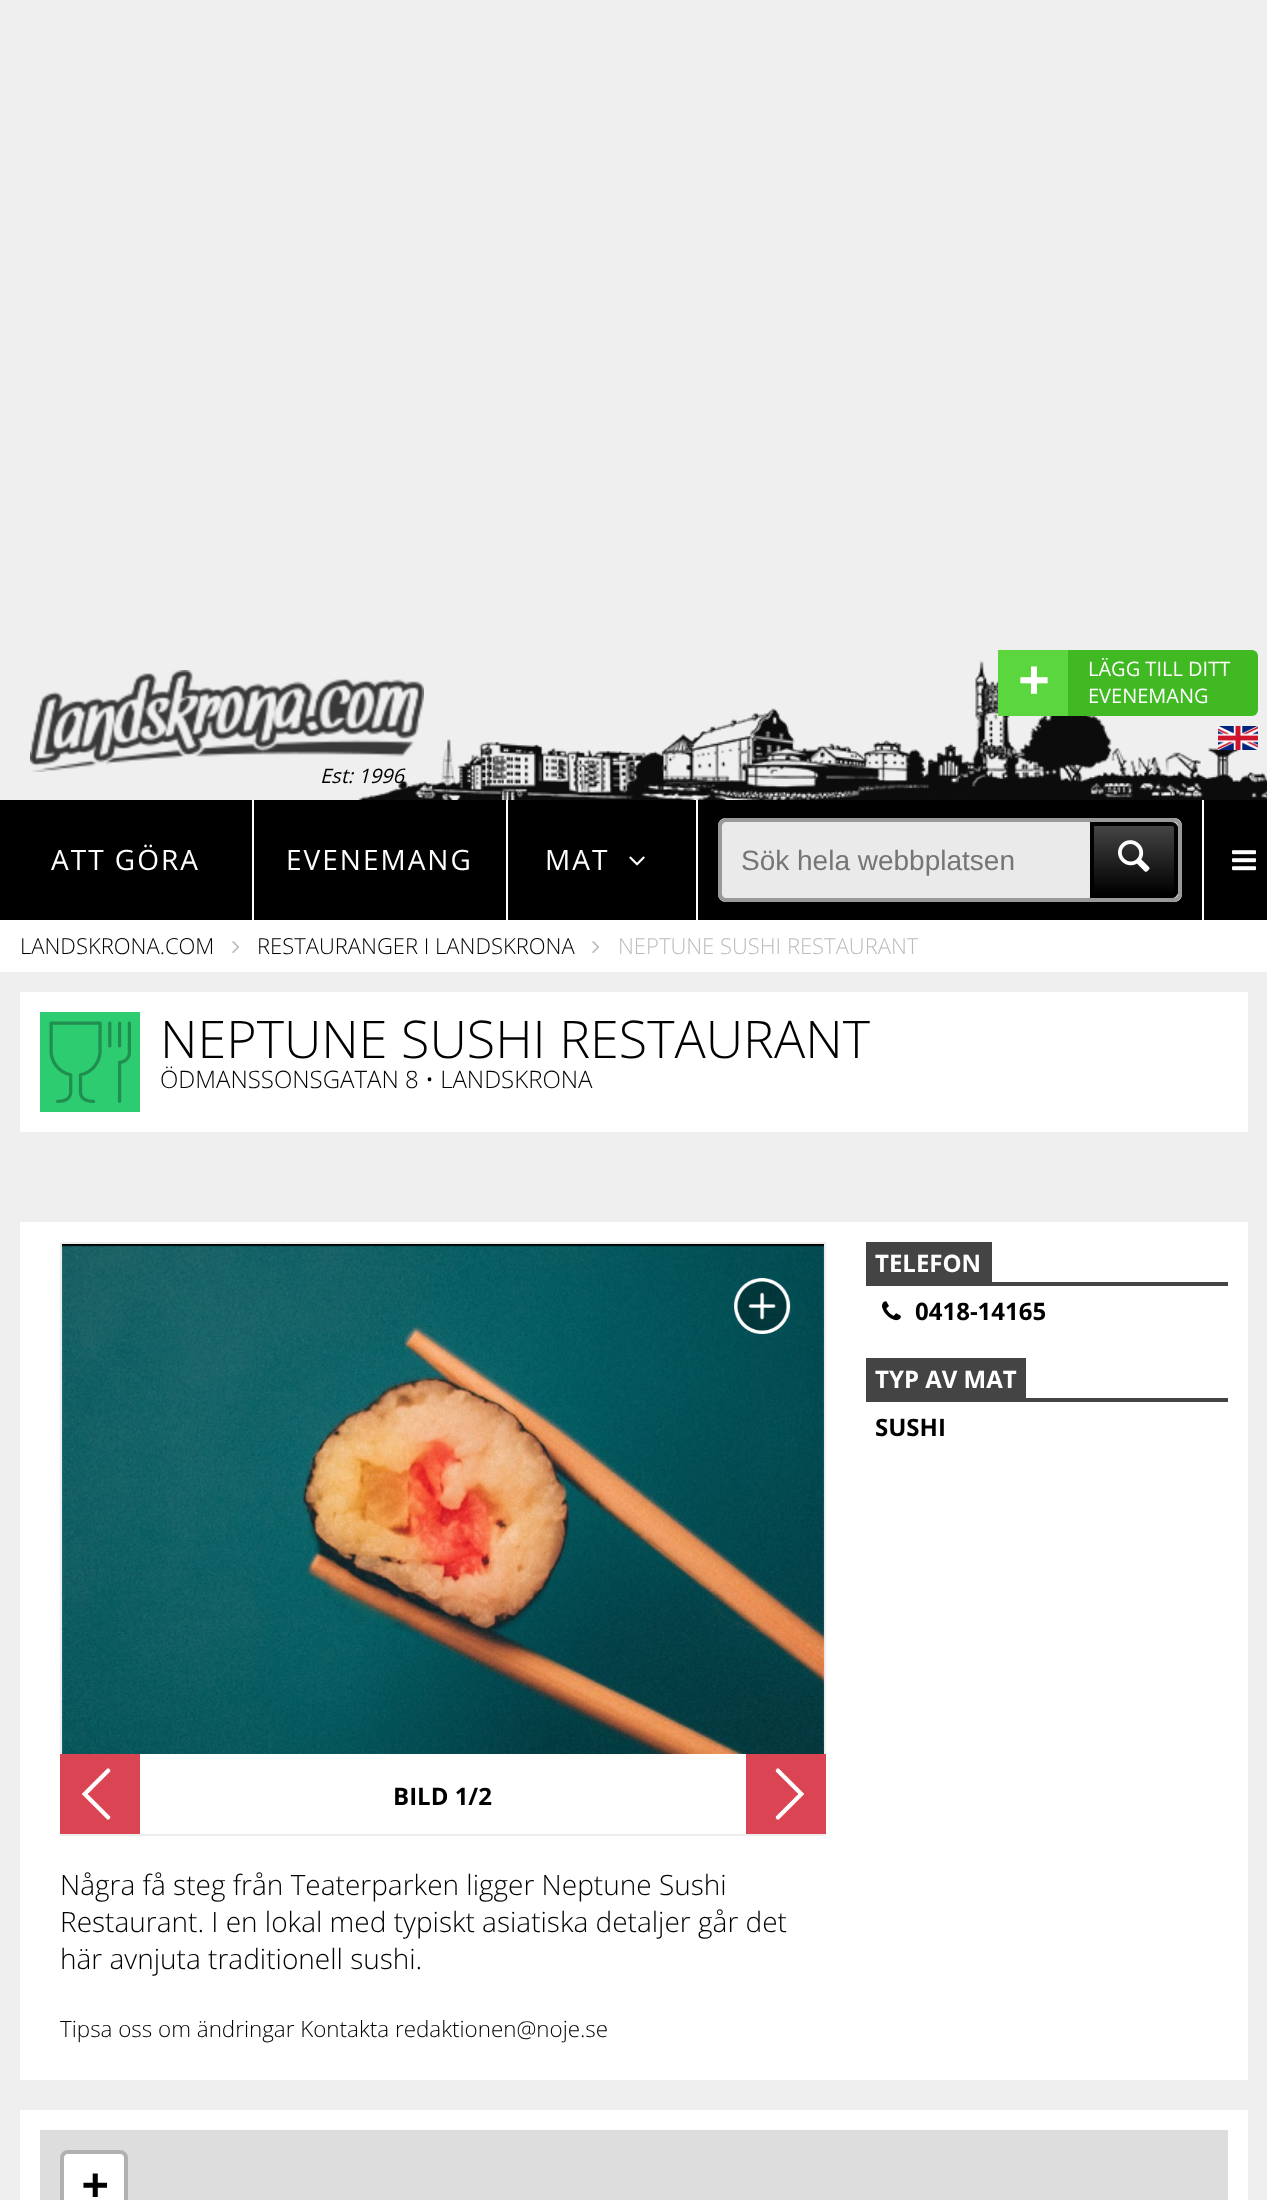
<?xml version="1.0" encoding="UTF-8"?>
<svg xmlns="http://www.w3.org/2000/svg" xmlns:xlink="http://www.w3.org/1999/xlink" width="1267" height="2200">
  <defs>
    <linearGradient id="g1" gradientUnits="userSpaceOnUse" x1="1134" y1="826" x2="1134" y2="894"><stop offset="0" stop-color="#444444" /><stop offset="1" stop-color="#000000" /></linearGradient>
  </defs>
  <rect width="100%" height="100%" fill="#efefef" />
  <rect y="800" width="252" height="120" fill="#000000" />
  <rect x="252" y="800" width="2" height="120" fill="#ffffff" />
  <rect x="254" y="800" width="252" height="120" fill="#000000" />
  <rect x="506" y="800" width="2" height="120" fill="#ffffff" />
  <rect x="508" y="800" width="188" height="120" fill="#000000" />
  <rect x="696" y="800" width="2" height="120" fill="#ffffff" />
  <image x="629" y="856" width="16" height="10" xlink:href="image4.png" />
  <rect x="698" y="800" width="504" height="120" fill="#000000" />
  <rect x="1202" y="800" width="2" height="120" fill="#ffffff" />
  <path d="M 726 818 h 364 v 84 h -364 c -4.5 0 -8 -3.5 -8 -8 v -68 c 0 -4.5 3.5 -8 8 -8 z" fill="#eaeaea" />
  <path d="M 726 818 h 364 v 84 h -364 c -4 0 -8 -4 -8 -8 v -68 c 0 -4 4 -8 8 -8 z m 0 4 h 364 v 76 h -364 c -2 0 -4 -2 -4 -4 v -68 c 0 -2 2 -4 4 -4 z" fill="#999999" fill-rule="evenodd" />
  <path d="M 1090 818 h 84 c 4.5 0 8 3.5 8 8 v 68 c 0 4.5 -3.5 8 -8 8 h -84 z" fill="#eaeaea" />
  <path d="M 1090 818 h 84 c 4 0 8 4 8 8 v 68 c 0 4 -4 8 -8 8 h -84 z m 0 4 h 84 c 2 0 4 2 4 4 v 68 c 0 2 -2 4 -4 4 h -84 z" fill="#999999" fill-rule="evenodd" />
  <rect x="1094" y="826" width="84" height="68" fill="url(#g1)" />
  <path d="M 1092 824 h 80 c 2 0 4 2 4 4 v 64 c 0 2 -2 4 -4 4 h -80 z" fill="none" stroke="#000000" stroke-width="4" />
  <image x="1118" y="840" width="32" height="32" xlink:href="image5.png" />
  <rect x="1204" y="800" width="63" height="120" fill="#000000" />
  <image x="1232" y="850" width="24" height="21" xlink:href="image6.png" />
  <rect y="920" width="1267" height="52" fill="#ffffff" />
  <image x="232" y="941" width="8" height="13" xlink:href="image7.png" />
  <image x="592" y="941" width="8" height="13" xlink:href="image7.png" />
  <rect x="20" y="992" width="1228" height="140" fill="#ffffff" />
  <image x="40" y="1012" width="100" height="100" xlink:href="image8.png" />
  <rect x="20" y="1222" width="1228" height="858" fill="#ffffff" />
  <rect x="866" y="1282" width="362" height="4" fill="#444444" />
  <rect x="866" y="1242" width="126" height="40" fill="#444444" />
  <image x="882" y="1301" width="19" height="20" xlink:href="image9.png" />
  <rect x="866" y="1398" width="362" height="4" fill="#444444" />
  <rect x="866" y="1358" width="160" height="40" fill="#444444" />
  <rect x="62" y="1244" width="762" height="3" fill="#000000" />
  <rect x="60" y="1242" width="766" height="2" fill="#ededed" />
  <rect x="824" y="1242" width="2" height="512" fill="#ededed" />
  <rect x="60" y="1242" width="2" height="512" fill="#ededed" />
  <image x="62" y="1245" width="762" height="509" xlink:href="image10.png" />
  <image x="734" y="1278" width="57" height="56" xlink:href="image11.png" />
  <rect x="60" y="1834" width="766" height="2" fill="#ededed" />
  <rect x="60" y="1754" width="80" height="80" fill="#da4453" />
  <image x="82" y="1768" width="29" height="52" xlink:href="image12.png" />
  <rect x="746" y="1754" width="80" height="80" fill="#da4453" />
  <image x="775" y="1768" width="29" height="52" xlink:href="image13.png" />
  <rect x="20" y="2110" width="1228" height="90" fill="#ffffff" />
  <rect x="40" y="2130" width="1188" height="70" fill="#dddddd" />
  <rect x="62" y="2152" width="64" height="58" rx="6" fill="none" stroke="#b1b1b1" stroke-width="4" />
  <path d="M 68 2154 h 52 c 2 0 4 2 4 4 v 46 h -60 v -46 c 0 -2 2 -4 4 -4 z" fill="#ffffff" />
  <text x="320" y="783" style="font-family: Open Sans; font-size: 20px; font-style: italic; fill: #000000">Est: 1996</text>
  <image x="358" y="660" width="909" height="140" xlink:href="image2.png" />
  <image x="30" y="670" width="394" height="102" xlink:href="image3.png" />
  <rect x="998" y="650" width="260" height="66" rx="6" fill="#40b922" />
  <text x="1088" y="703" style="font-family: Open Sans; font-size: 20px; fill: #ffffff">EVENEMANG</text>
  <text x="1088" y="676" style="font-family: Open Sans; font-size: 20px; fill: #ffffff">LÄGG TILL DITT</text>
  <rect x="998" y="650" width="70" height="66" fill="#5cd63e" />
  <text x="1018" y="700" style="font-family: Open Sans; font-size: 56px; font-weight: bold; fill: #ffffff">+</text>
  <image x="1218" y="726" width="40" height="24" xlink:href="image1.png" />
  <text x="51" y="870" style="font-family: Open Sans; font-size: 28px; letter-spacing: 2px; fill: #ffffff">ATT GÖRA</text>
  <text x="286" y="870" style="font-family: Open Sans; font-size: 28px; letter-spacing: 2px; fill: #ffffff">EVENEMANG</text>
  <text x="545" y="870" style="font-family: Open Sans; font-size: 28px; letter-spacing: 2px; fill: #ffffff">MAT</text>
  <text x="741" y="870" style="font-family: Liberation Sans; font-size: 28px; fill: #757575">Sök hela webbplatsen</text>
  <text x="20" y="954" style="font-family: Open Sans; font-size: 22px; font-weight: 300; fill: #000000">LANDSKRONA.COM</text>
  <text x="257" y="954" style="font-family: Open Sans; font-size: 22px; font-weight: 300; fill: #000000">RESTAURANGER I LANDSKRONA</text>
  <text x="618" y="954" style="font-family: Open Sans; font-size: 22px; font-weight: 300; fill: #bbbbbb">NEPTUNE SUSHI RESTAURANT</text>
  <text x="160" y="1058" style="font-family: Open Sans; font-size: 52px; font-weight: 300; fill: #000000">NEPTUNE SUSHI RESTAURANT</text>
  <text x="160" y="1088" style="font-family: Open Sans; font-size: 24px; font-weight: 300; fill: #000000">ÖDMANSSONSGATAN 8 • LANDSKRONA</text>
  <text x="875" y="1272" style="font-family: Open Sans; font-size: 24px; font-weight: bold; fill: #ffffff">TELEFON</text>
  <text x="915" y="1320" style="font-family: Open Sans; font-size: 24px; font-weight: bold; fill: #000000">0418-14165</text>
  <text x="875" y="1388" style="font-family: Open Sans; font-size: 24px; font-weight: bold; fill: #ffffff">TYP AV MAT</text>
  <text x="875" y="1436" style="font-family: Open Sans; font-size: 24px; font-weight: bold; fill: #000000">SUSHI</text>
  <text x="393" y="1805" style="font-family: Open Sans; font-size: 24px; font-weight: bold; fill: #000000">BILD 1/2</text>
  <text x="60" y="1895" style="font-family: Open Sans; font-size: 28px; font-weight: 300; fill: #000000">Några få steg från Teaterparken ligger Neptune Sushi</text>
  <text x="60" y="1932" style="font-family: Open Sans; font-size: 28px; font-weight: 300; fill: #000000">Restaurant. I en lokal med typiskt asiatiska detaljer går det</text>
  <text x="60" y="1969" style="font-family: Open Sans; font-size: 28px; font-weight: 300; fill: #000000">här avnjuta traditionell sushi.</text>
  <text x="60" y="2037" style="font-family: Open Sans; font-size: 22.4px; font-weight: 300; fill: #000000">Tipsa oss om ändringar Kontakta</text>
  <text x="395" y="2037" style="font-family: Open Sans; font-size: 22.4px; font-weight: 300; fill: #000000">redaktionen@noje.se</text>
  <text x="82" y="2199" style="font-family: DejaVu Sans Mono; font-size: 44px; font-weight: bold; fill: #000000">+</text>
</svg>
